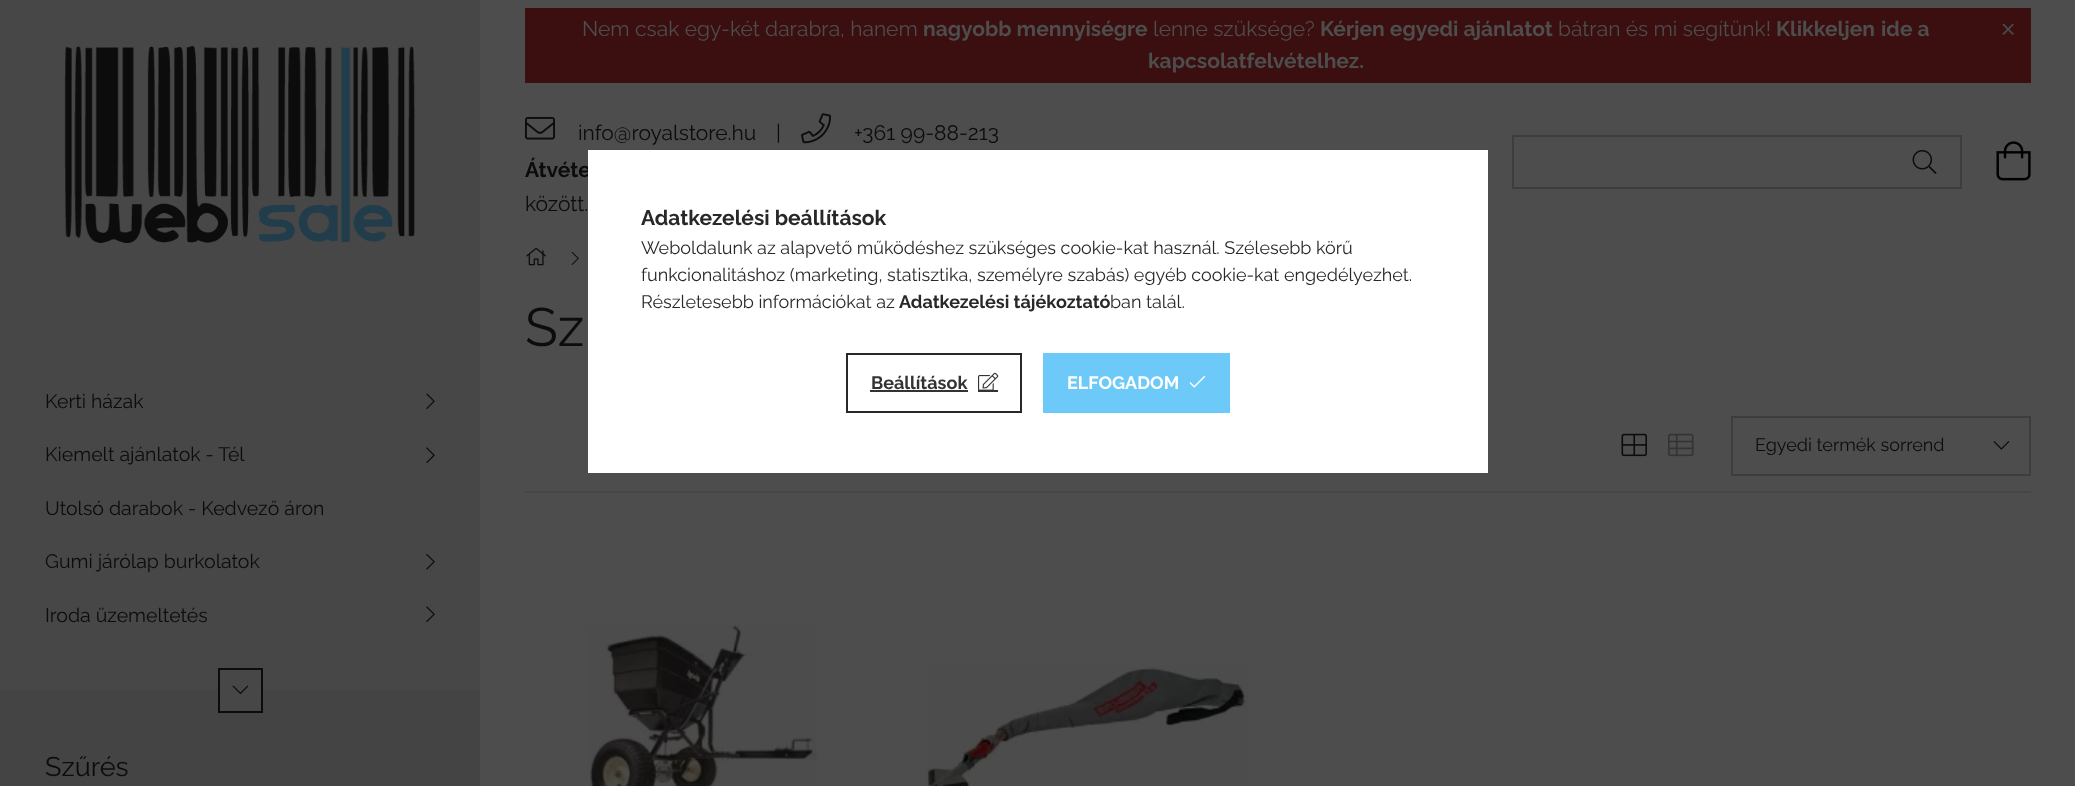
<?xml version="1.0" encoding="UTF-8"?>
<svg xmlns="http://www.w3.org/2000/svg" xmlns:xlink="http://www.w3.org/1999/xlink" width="2075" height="786">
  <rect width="100%" height="100%" fill="#4d4d4d" />
  <rect x="525" y="8" width="1506" height="75" fill="#3b0f10" />
  <image x="2002" y="23" width="12" height="12" xlink:href="image1.png" />
  <image x="525" y="117" width="30" height="23" xlink:href="image2.png" />
  <image x="801" y="113" width="31" height="31" xlink:href="image3.png" />
  <rect x="1513" y="136" width="448" height="52" fill="none" stroke="#3d3d3d" stroke-width="2" />
  <image x="1912" y="150" width="25" height="24" xlink:href="image4.png" />
  <image x="1996" y="141" width="35" height="40" xlink:href="image5.png" />
  <image x="526" y="248" width="20" height="18" xlink:href="image6.png" />
  <image x="571" y="251" width="8" height="14" xlink:href="image7.png" />
  <rect x="525" y="491" width="1506" height="2" fill="#464646" />
  <image x="1621" y="433" width="26" height="24" xlink:href="image8.png" />
  <image x="1668" y="433" width="26" height="24" xlink:href="image9.png" />
  <rect x="1732" y="417" width="298" height="58" fill="none" stroke="#3d3d3d" stroke-width="2" />
  <image x="1993" y="441" width="17" height="9" xlink:href="image10.png" />
  <image x="590" y="625" width="227" height="161" xlink:href="image11.png" />
  <image x="927" y="665" width="321" height="121" xlink:href="image12.png" />
  <rect width="480" height="690" fill="#474747" />
  <image x="64" y="45" width="351" height="198" xlink:href="image13.png" />
  <image x="426" y="393" width="9" height="17" xlink:href="image14.png" />
  <image x="426" y="447" width="9" height="17" xlink:href="image14.png" />
  <image x="426" y="553" width="9" height="17" xlink:href="image15.png" />
  <image x="426" y="606" width="9" height="17" xlink:href="image14.png" />
  <rect y="690" width="480" height="96" fill="#444444" />
  <rect x="220" y="690" width="41" height="21" fill="#474747" />
  <rect x="219" y="669" width="43" height="43" fill="none" stroke="#0c0c0c" stroke-width="2" />
  <image x="232" y="685" width="17" height="10" xlink:href="image16.png" />
  <text x="582" y="36" style="font-family: Raleway; font-size: 21px; fill: #4d4d4d">Nem csak egy-két darabra, hanem</text>
  <text x="923" y="36" style="font-family: Raleway; font-size: 21px; font-weight: bold; fill: #4d4d4d">nagyobb mennyiségre</text>
  <text x="1153" y="36" style="font-family: Raleway; font-size: 21px; fill: #4d4d4d">lenne szüksége?</text>
  <text x="1320" y="36" style="font-family: Raleway; font-size: 21px; font-weight: bold; fill: #4d4d4d">Kérjen egyedi ajánlatot</text>
  <text x="1558" y="36" style="font-family: Raleway; font-size: 21px; fill: #4d4d4d">bátran és mi segítünk!</text>
  <text x="1776" y="36" style="font-family: Raleway; font-size: 21px; font-weight: bold; fill: #4d4d4d">Klikkeljen</text>
  <text x="1881" y="36" style="font-family: Raleway; font-size: 21px; font-weight: bold; fill: #4d4d4d">ide a</text>
  <text x="1148" y="68" style="font-family: Raleway; font-size: 21px; font-weight: bold; fill: #4d4d4d">kapcsolatfelvételhez.</text>
  <text x="578" y="140" style="font-family: Raleway; font-size: 21px; fill: #0c0c0c">info@royalstore.hu</text>
  <text x="776" y="140" style="font-family: Raleway; font-size: 21px; fill: #0c0c0c">|</text>
  <text x="854" y="140" style="font-family: Raleway; font-size: 21px; fill: #0c0c0c">+361 99-88-213</text>
  <text x="525" y="177" style="font-family: Raleway; font-size: 21px; font-weight: bold; fill: #0c0c0c">Átvéte</text>
  <text x="525" y="211" style="font-family: Raleway; font-size: 21px; fill: #0c0c0c">között.</text>
  <text x="525" y="346" style="font-family: Raleway; font-size: 54px; fill: #0c0c0c">Sz</text>
  <text x="1755" y="451" style="font-family: Raleway; font-size: 18px; fill: #0c0c0c">Egyedi termék sorrend</text>
  <text x="45" y="408" style="font-family: Raleway; font-size: 19.5px; fill: #0c0c0c">Kerti házak</text>
  <text x="45" y="461" style="font-family: Raleway; font-size: 19.5px; fill: #0c0c0c">Kiemelt ajánlatok - Tél</text>
  <text x="45" y="515" style="font-family: Raleway; font-size: 19.5px; fill: #0c0c0c">Utolsó darabok - Kedvező áron</text>
  <text x="45" y="568" style="font-family: Raleway; font-size: 19.5px; fill: #0c0c0c">Gumi járólap burkolatok</text>
  <text x="45" y="622" style="font-family: Raleway; font-size: 19.5px; fill: #0c0c0c">Iroda üzemeltetés</text>
  <text x="45" y="776" style="font-family: Raleway; font-size: 27px; fill: #0c0c0c">Szűrés</text>
  <rect x="588" y="150" width="900" height="323" fill="#ffffff" />
  <text x="641" y="225" style="font-family: Raleway; font-size: 21px; font-weight: bold; fill: #282828">Adatkezelési beállítások</text>
  <text x="641" y="254" style="font-family: Raleway; font-size: 18px; fill: #282828">Weboldalunk az alapvető működéshez szükséges cookie-kat használ. Szélesebb körű</text>
  <text x="641" y="281" style="font-family: Raleway; font-size: 18px; fill: #282828">funkcionalitáshoz (marketing, statisztika, személyre szabás) egyéb cookie-kat engedélyezhet.</text>
  <text x="641" y="308" style="font-family: Raleway; font-size: 18px; fill: #282828">Részletesebb információkat az</text>
  <text x="899" y="308" style="font-family: Raleway; font-size: 18px; font-weight: bold; fill: #282828">Adatkezelési tájékoztató</text>
  <text x="1110" y="308" style="font-family: Raleway; font-size: 18px; fill: #282828">ban talál.</text>
  <rect x="847" y="354" width="174" height="58" fill="none" stroke="#282828" stroke-width="2" />
  <text x="871" y="389" style="font-family: Raleway; font-size: 18px; font-weight: bold; fill: #333333">Beállítások</text>
  <rect x="870" y="390" width="98" height="2" fill="#333333" />
  <image x="978" y="372" width="21" height="18" xlink:href="image17.png" />
  <rect x="978" y="390" width="20" height="2" fill="#333333" />
  <rect x="1043" y="353" width="187" height="60" fill="#6dc9f7" />
  <text x="1067" y="389" style="font-family: Raleway; font-size: 18px; font-weight: bold; fill: #ffffff">ELFOGADOM</text>
  <image x="1189" y="375" width="17" height="13" xlink:href="image18.png" />
</svg>
